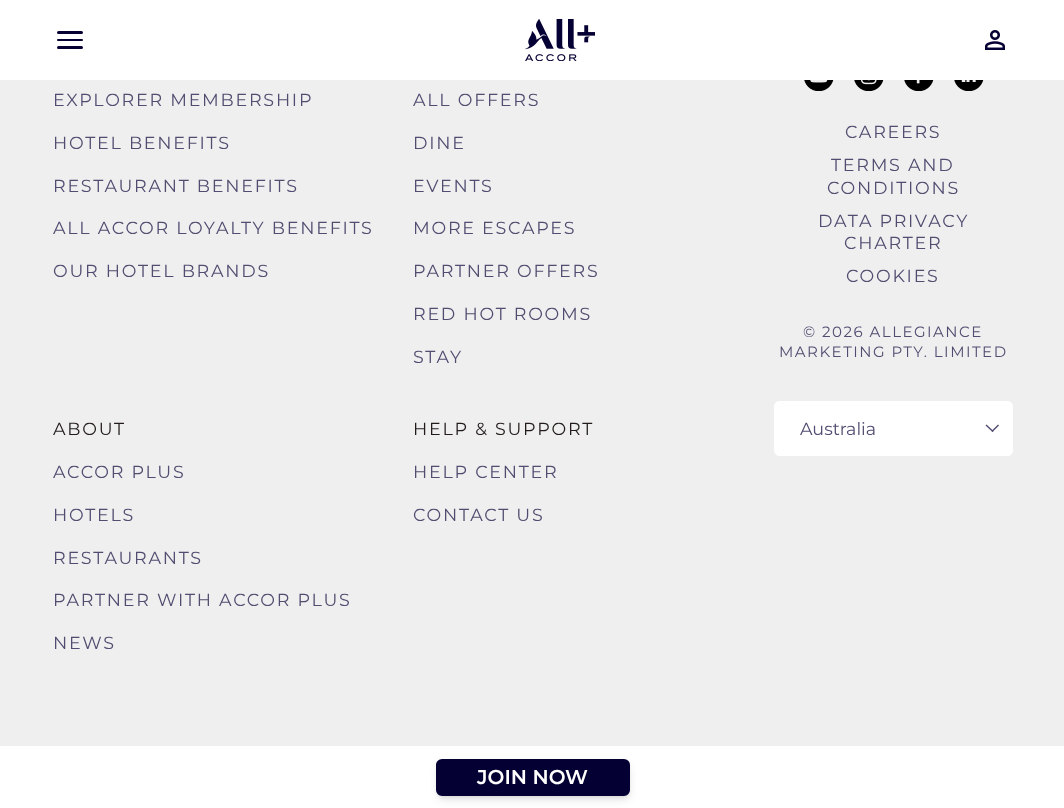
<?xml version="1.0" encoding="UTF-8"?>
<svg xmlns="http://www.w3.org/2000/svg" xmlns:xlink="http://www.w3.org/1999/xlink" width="1064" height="808">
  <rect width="100%" height="100%" fill="#efefef" />
  <rect width="1064" height="80" fill="#ffffff" />
  <rect x="57" y="46" width="26" height="3" rx="1.5" fill="#050033" />
  <rect x="57" y="39" width="26" height="2" rx="1" fill="#050033" />
  <rect x="57" y="31" width="26" height="3" rx="1.5" fill="#050033" />
  <image x="525" y="19" width="70" height="42" xlink:href="image1.png" />
  <image x="985" y="30" width="20" height="20" xlink:href="image2.png" />
  <image x="804" y="80" width="30" height="11" xlink:href="image3.png" />
  <image x="854" y="80" width="30" height="11" xlink:href="image4.png" />
  <image x="904" y="80" width="30" height="11" xlink:href="image5.png" />
  <image x="954" y="80" width="30" height="11" xlink:href="image6.png" />
  <rect x="774.5" y="401.5" width="238" height="54" rx="4.5" fill="#ffffff" stroke="#ffffff" />
  <path d="M 998 424.5 l 1 1 l -6.5 6.5 l -1 -1 z" fill="#504d70" />
  <path d="M 986.5 424.5 l 7 6.5 l -1 1 l -7 -6.5 z" fill="#504d70" />
  <rect y="746" width="1064" height="62" fill="#ffffff" />
  <rect x="439" y="764" width="189" height="32" rx="4" fill="#000000" fill-opacity="0.1" filter="blur(2.5px)" />
  <rect x="438" y="765" width="191" height="35" rx="5" fill="#000000" fill-opacity="0.1" filter="blur(4px)" />
  <rect x="437.5" y="760.5" width="191" height="34" rx="4.5" fill="#050033" stroke="#050033" stroke-width="3" />
  <text x="53" y="106" style="font-family: Montserrat; font-size: 17.5px; font-weight: 100; letter-spacing: 1.75px; fill: #504d70">EXPLORER MEMBERSHIP</text>
  <text x="53" y="149" style="font-family: Montserrat; font-size: 17.5px; font-weight: 100; letter-spacing: 1.75px; fill: #504d70">HOTEL BENEFITS</text>
  <text x="53" y="192" style="font-family: Montserrat; font-size: 17.5px; font-weight: 100; letter-spacing: 1.75px; fill: #504d70">RESTAURANT BENEFITS</text>
  <text x="53" y="234" style="font-family: Montserrat; font-size: 17.5px; font-weight: 100; letter-spacing: 1.75px; fill: #504d70">ALL ACCOR LOYALTY BENEFITS</text>
  <text x="53" y="277" style="font-family: Montserrat; font-size: 17.5px; font-weight: 100; letter-spacing: 1.75px; fill: #504d70">OUR HOTEL BRANDS</text>
  <text x="413" y="106" style="font-family: Montserrat; font-size: 17.5px; font-weight: 100; letter-spacing: 1.75px; fill: #504d70">ALL OFFERS</text>
  <text x="413" y="149" style="font-family: Montserrat; font-size: 17.5px; font-weight: 100; letter-spacing: 1.75px; fill: #504d70">DINE</text>
  <text x="413" y="192" style="font-family: Montserrat; font-size: 17.5px; font-weight: 100; letter-spacing: 1.75px; fill: #504d70">EVENTS</text>
  <text x="413" y="234" style="font-family: Montserrat; font-size: 17.5px; font-weight: 100; letter-spacing: 1.75px; fill: #504d70">MORE ESCAPES</text>
  <text x="413" y="277" style="font-family: Montserrat; font-size: 17.5px; font-weight: 100; letter-spacing: 1.75px; fill: #504d70">PARTNER OFFERS</text>
  <text x="413" y="320" style="font-family: Montserrat; font-size: 17.5px; font-weight: 100; letter-spacing: 1.75px; fill: #504d70">RED HOT ROOMS</text>
  <text x="413" y="363" style="font-family: Montserrat; font-size: 17.5px; font-weight: 100; letter-spacing: 1.75px; fill: #504d70">STAY</text>
  <text x="53" y="435" style="font-family: Montserrat; font-size: 17.5px; font-weight: 100; letter-spacing: 1.75px; fill: #221b1a">ABOUT</text>
  <text x="53" y="478" style="font-family: Montserrat; font-size: 17.5px; font-weight: 100; letter-spacing: 1.75px; fill: #504d70">ACCOR PLUS</text>
  <text x="53" y="521" style="font-family: Montserrat; font-size: 17.5px; font-weight: 100; letter-spacing: 1.75px; fill: #504d70">HOTELS</text>
  <text x="53" y="564" style="font-family: Montserrat; font-size: 17.5px; font-weight: 100; letter-spacing: 1.75px; fill: #504d70">RESTAURANTS</text>
  <text x="53" y="606" style="font-family: Montserrat; font-size: 17.5px; font-weight: 100; letter-spacing: 1.75px; fill: #504d70">PARTNER WITH ACCOR PLUS</text>
  <text x="53" y="649" style="font-family: Montserrat; font-size: 17.5px; font-weight: 100; letter-spacing: 1.75px; fill: #504d70">NEWS</text>
  <text x="413" y="435" style="font-family: Montserrat; font-size: 17.5px; font-weight: 100; letter-spacing: 1.75px; fill: #221b1a">HELP &amp; SUPPORT</text>
  <text x="413" y="478" style="font-family: Montserrat; font-size: 17.5px; font-weight: 100; letter-spacing: 1.75px; fill: #504d70">HELP CENTER</text>
  <text x="413" y="521" style="font-family: Montserrat; font-size: 17.5px; font-weight: 100; letter-spacing: 1.75px; fill: #504d70">CONTACT US</text>
  <text x="845" y="138" style="font-family: Montserrat; font-size: 17.5px; font-weight: 100; letter-spacing: 1.75px; fill: #504d70">CAREERS</text>
  <text x="831" y="171" style="font-family: Montserrat; font-size: 17.5px; font-weight: 100; letter-spacing: 1.75px; fill: #504d70">TERMS AND</text>
  <text x="827" y="194" style="font-family: Montserrat; font-size: 17.5px; font-weight: 100; letter-spacing: 1.75px; fill: #504d70">CONDITIONS</text>
  <text x="818" y="227" style="font-family: Montserrat; font-size: 17.5px; font-weight: 100; letter-spacing: 1.75px; fill: #504d70">DATA PRIVACY</text>
  <text x="844" y="249" style="font-family: Montserrat; font-size: 17.5px; font-weight: 100; letter-spacing: 1.75px; fill: #504d70">CHARTER</text>
  <text x="846" y="282" style="font-family: Montserrat; font-size: 17.5px; font-weight: 100; letter-spacing: 1.75px; fill: #504d70">COOKIES</text>
  <text x="803" y="337" style="font-family: Montserrat; font-size: 15px; font-weight: 100; letter-spacing: 1.5px; fill: #504d70">© 2026 ALLEGIANCE</text>
  <text x="779" y="357" style="font-family: Montserrat; font-size: 15px; font-weight: 100; letter-spacing: 1.5px; fill: #504d70">MARKETING PTY. LIMITED</text>
  <text x="800" y="435" style="font-family: Montserrat; font-size: 17.5px; font-weight: 100; fill: #504d70">Australia</text>
  <text x="477" y="784" style="font-family: 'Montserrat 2'; font-size: 20px; font-weight: 100; fill: #ffffff">JOIN NOW</text>
</svg>
